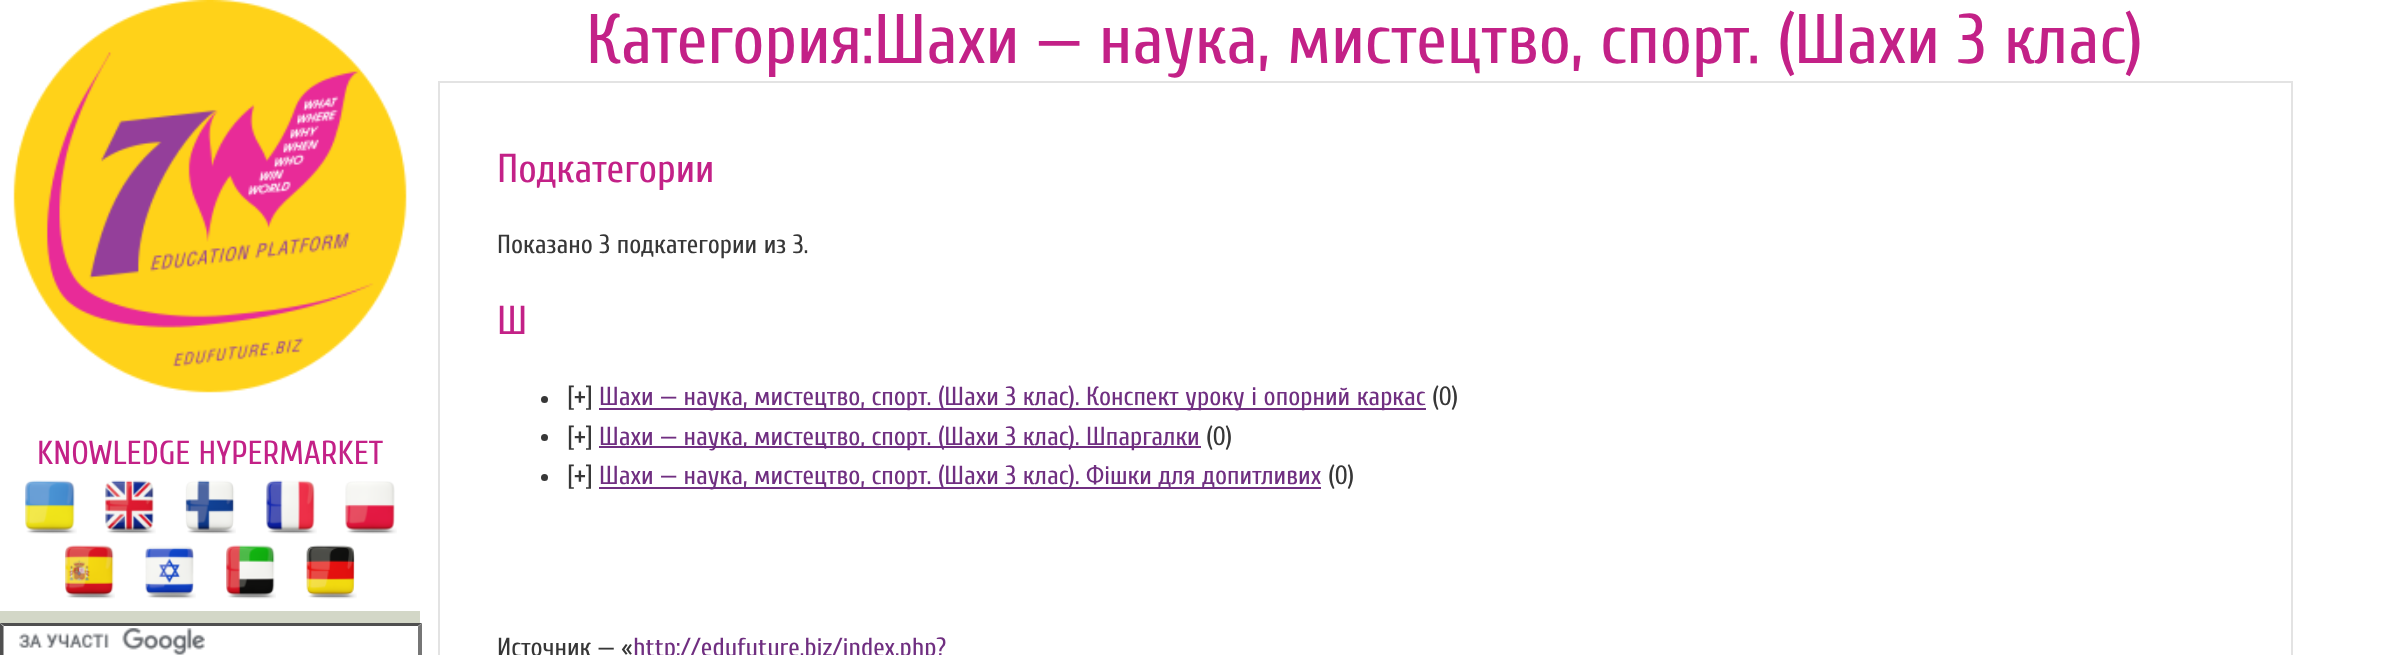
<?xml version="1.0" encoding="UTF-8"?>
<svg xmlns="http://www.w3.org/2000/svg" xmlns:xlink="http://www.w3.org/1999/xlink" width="2393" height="655">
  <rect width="100%" height="100%" fill="#ffffff" />
  <image x="13" y="0" width="394" height="393" xlink:href="image1.png" />
  <image x="25" y="480" width="52" height="54" xlink:href="image2.png" />
  <image x="105" y="480" width="51" height="54" xlink:href="image3.png" />
  <image x="185" y="480" width="51" height="54" xlink:href="image4.png" />
  <image x="266" y="480" width="51" height="54" xlink:href="image5.png" />
  <image x="345" y="481" width="52" height="53" xlink:href="image6.png" />
  <image x="65" y="545" width="50" height="54" xlink:href="image7.png" />
  <image x="145" y="545" width="51" height="54" xlink:href="image8.png" />
  <image x="226" y="545" width="50" height="54" xlink:href="image9.png" />
  <image x="306" y="545" width="51" height="54" xlink:href="image10.png" />
  <rect y="611" width="420" height="12" fill="#d3d7c7" />
  <image x="19" y="628" width="186" height="27" xlink:href="image11.png" />
  <path d="M 0 623 h 422 l -4 3 h -414 z" fill="#4f4f4f" />
  <path d="M 422 623 v 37 l -4 -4 v -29.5 z" fill="#767676" />
  <path d="M 0 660 v -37 l 3.5 3.5 v 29.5 z" fill="#4f4f4f" />
  <rect x="439" y="82" width="1853" height="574" fill="none" stroke="#e3e3e3" stroke-width="2" />
  <circle cx="544.5" cy="399.5" r="3.5" fill="#373737" />
  <rect x="599" y="408" width="827" height="2" fill="#702f81" />
  <circle cx="544.5" cy="437.5" r="3.5" fill="#373737" />
  <rect x="599" y="446" width="602" height="2" fill="#702f81" />
  <circle cx="544.5" cy="477.5" r="3.5" fill="#373737" />
  <rect x="599" y="487" width="722" height="2" fill="#702f81" />
  <text x="37" y="464" style="font-family: Cuprum; font-size: 33.25px; fill: #c32187">KNOWLEDGE HYPERMARKET</text>
  <text x="586" y="63" style="font-family: Cuprum; font-size: 70px; fill: #c32187">Категория:Шахи — наука, мистецтво, спорт. (Шахи 3 клас)</text>
  <text x="497" y="182" style="font-family: Cuprum; font-size: 40.25px; fill: #c32187">Подкатегории</text>
  <text x="497" y="253" style="font-family: Cuprum; font-size: 26.25px; fill: #373737">Показано 3 подкатегории из 3.</text>
  <text x="497" y="334" style="font-family: Cuprum; font-size: 40.25px; fill: #c32187">Ш</text>
  <text x="567" y="405" style="font-family: Cuprum; font-size: 26.25px; fill: #373737">[</text>
  <text x="574" y="405" style="font-family: Cuprum; font-size: 26.25px; font-weight: bold; fill: #373737">+</text>
  <text x="586" y="405" style="font-family: Cuprum; font-size: 26.25px; fill: #373737">]</text>
  <text x="599" y="405" style="font-family: Cuprum; font-size: 26.25px; fill: #702f81">Шахи — наука, мистецтво, спорт. (Шахи 3 клас). Конспект уроку і опорний каркас</text>
  <text x="1432" y="405" style="font-family: Cuprum; font-size: 26.25px; fill: #373737">(0)</text>
  <text x="567" y="445" style="font-family: Cuprum; font-size: 26.25px; fill: #373737">[</text>
  <text x="574" y="445" style="font-family: Cuprum; font-size: 26.25px; font-weight: bold; fill: #373737">+</text>
  <text x="586" y="445" style="font-family: Cuprum; font-size: 26.25px; fill: #373737">]</text>
  <text x="599" y="445" style="font-family: Cuprum; font-size: 26.25px; fill: #702f81">Шахи — наука, мистецтво, спорт. (Шахи 3 клас). Шпаргалки</text>
  <text x="1206" y="445" style="font-family: Cuprum; font-size: 26.25px; fill: #373737">(0)</text>
  <text x="567" y="484" style="font-family: Cuprum; font-size: 26.25px; fill: #373737">[</text>
  <text x="574" y="484" style="font-family: Cuprum; font-size: 26.25px; font-weight: bold; fill: #373737">+</text>
  <text x="586" y="484" style="font-family: Cuprum; font-size: 26.25px; fill: #373737">]</text>
  <text x="599" y="484" style="font-family: Cuprum; font-size: 26.25px; fill: #702f81">Шахи — наука, мистецтво, спорт. (Шахи 3 клас). Фішки для допитливих</text>
  <text x="1328" y="484" style="font-family: Cuprum; font-size: 26.25px; fill: #373737">(0)</text>
  <text x="497" y="656" style="font-family: Cuprum; font-size: 26.25px; fill: #373737">Источник — «</text>
  <text x="633" y="656" style="font-family: Cuprum; font-size: 26.25px; fill: #702f81">http://edufuture.biz/index.php?</text>
</svg>
